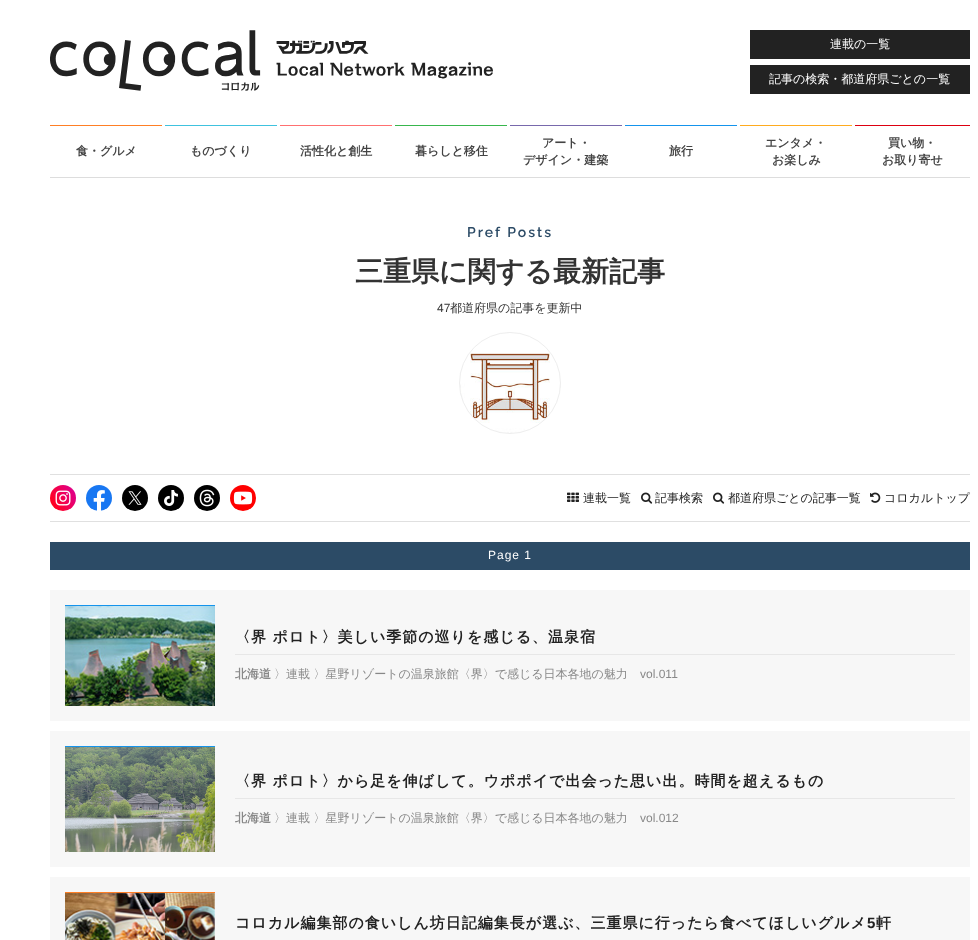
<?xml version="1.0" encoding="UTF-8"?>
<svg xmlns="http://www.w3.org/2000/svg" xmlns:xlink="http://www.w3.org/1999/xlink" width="978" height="940">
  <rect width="100%" height="100%" fill="#ffffff" />
  <image x="50" y="30" width="443" height="61" xlink:href="image1.png" />
  <rect x="750" y="30" width="220" height="29" fill="#222222" />
  <rect x="750" y="65" width="220" height="29" fill="#222222" />
  <rect x="50" y="177" width="920" height="1" fill="#dddddd" />
  <rect x="50" y="125" width="112" height="1" fill="#ff7f25" />
  <rect x="165" y="125" width="112" height="1" fill="#40c2de" />
  <rect x="280" y="125" width="112" height="1" fill="#ff7070" />
  <rect x="395" y="125" width="112" height="1" fill="#38b64d" />
  <rect x="510" y="125" width="112" height="1" fill="#7869ac" />
  <rect x="625" y="125" width="112" height="1" fill="#1594ec" />
  <rect x="740" y="125" width="112" height="1" fill="#ffab1f" />
  <rect x="855" y="125" width="115" height="1" fill="#dd0011" />
  <image x="460" y="332" width="101" height="101" xlink:href="image2.png" />
  <circle cx="510" cy="383" r="50.5" fill="none" stroke="#eeeeee" />
  <rect x="50" y="474" width="920" height="1" fill="#e0e0e0" />
  <rect x="50" y="521" width="920" height="1" fill="#e0e0e0" />
  <image x="50" y="485" width="26" height="26" xlink:href="image3.png" />
  <image x="55" y="490" width="16" height="16" xlink:href="image4.png" />
  <circle cx="99" cy="498" r="13" fill="#1877f2" />
  <image x="93" y="490" width="12" height="21" xlink:href="image5.png" />
  <circle cx="135" cy="498" r="13" fill="#000000" />
  <image x="128" y="491" width="14" height="14" xlink:href="image6.png" />
  <circle cx="171" cy="498" r="13" fill="#000000" />
  <image x="164" y="490" width="14" height="16" xlink:href="image7.png" />
  <circle cx="207" cy="498" r="13" fill="#000000" />
  <image x="199" y="489" width="16" height="18" xlink:href="image8.png" />
  <circle cx="243" cy="498" r="13" fill="#ff0000" />
  <image x="233" y="491" width="20" height="14" xlink:href="image9.png" />
  <image x="567" y="492" width="12" height="10" xlink:href="image10.png" />
  <image x="641" y="492" width="12" height="12" xlink:href="image11.png" />
  <image x="713" y="492" width="12" height="12" xlink:href="image11.png" />
  <image x="870" y="492" width="11" height="11" xlink:href="image12.png" />
  <rect x="50" y="542" width="920" height="28" fill="#2c4b66" />
  <rect x="50" y="590" width="920" height="131" fill="#f7f7f7" />
  <rect x="65" y="605" width="150" height="1" fill="#1594ec" />
  <image x="65" y="606" width="150" height="100" xlink:href="image13.png" />
  <rect x="235" y="654" width="720" height="1" fill="#e7e7e7" />
  <rect x="50" y="731" width="920" height="136" fill="#f7f7f7" />
  <rect x="65" y="746" width="150" height="1" fill="#1594ec" />
  <image x="65" y="747" width="150" height="105" xlink:href="image14.png" />
  <rect x="235" y="798" width="720" height="1" fill="#e7e7e7" />
  <rect x="50" y="877" width="920" height="63" fill="#f7f7f7" />
  <rect x="65" y="892" width="150" height="1" fill="#ff7f25" />
  <image x="65" y="893" width="150" height="47" xlink:href="image15.png" />
  <text x="830" y="48" style="font-family: WenQuanYi Zen Hei; font-size: 12px; font-weight: 500; fill: #ffffff">連載の一覧</text>
  <text x="769" y="83" style="font-family: WenQuanYi Zen Hei; font-size: 12px; font-weight: 500; fill: #ffffff">記事の検索・都道府県ごとの一覧</text>
  <text x="76" y="155" style="font-family: WenQuanYi Zen Hei; font-size: 12px; font-weight: bold; fill: #444444">食・グルメ</text>
  <text x="190" y="155" style="font-family: WenQuanYi Zen Hei; font-size: 12px; font-weight: bold; fill: #444444">ものづくり</text>
  <text x="300" y="155" style="font-family: WenQuanYi Zen Hei; font-size: 12px; font-weight: bold; fill: #444444">活性化と創生</text>
  <text x="415" y="155" style="font-family: WenQuanYi Zen Hei; font-size: 12px; font-weight: bold; fill: #444444">暮らしと移住</text>
  <text x="542" y="147" style="font-family: WenQuanYi Zen Hei; font-size: 12px; font-weight: bold; fill: #444444">アート・</text>
  <text x="523" y="164" style="font-family: WenQuanYi Zen Hei; font-size: 12px; font-weight: bold; fill: #444444">デザイン・建築</text>
  <text x="669" y="155" style="font-family: WenQuanYi Zen Hei; font-size: 12px; font-weight: bold; fill: #444444">旅行</text>
  <text x="765" y="147" style="font-family: WenQuanYi Zen Hei; font-size: 12px; font-weight: bold; fill: #444444">エンタメ・</text>
  <text x="772" y="164" style="font-family: WenQuanYi Zen Hei; font-size: 12px; font-weight: bold; fill: #444444">お楽しみ</text>
  <text x="888" y="147" style="font-family: WenQuanYi Zen Hei; font-size: 12px; font-weight: bold; fill: #444444">買い物・</text>
  <text x="882" y="164" style="font-family: WenQuanYi Zen Hei; font-size: 12px; font-weight: bold; fill: #444444">お取り寄せ</text>
  <text x="467" y="237" style="font-family: Raleway; font-size: 14px; font-weight: 600; letter-spacing: 2px; fill: #2c4b66">Pref Posts</text>
  <text x="355" y="281" style="font-family: WenQuanYi Zen Hei; font-size: 28px; font-weight: bold; fill: #333333">三重県に関する最新記事</text>
  <text x="437" y="312" style="font-family: Liberation Sans; font-size: 12px; fill: #333333">47</text>
  <text x="450" y="312" style="font-family: WenQuanYi Zen Hei; font-size: 12px; font-weight: 500; fill: #333333">都道府県の記事を更新中</text>
  <text x="583" y="502" style="font-family: WenQuanYi Zen Hei; font-size: 12px; font-weight: 500; fill: #222222">連載一覧</text>
  <text x="655" y="502" style="font-family: WenQuanYi Zen Hei; font-size: 12px; font-weight: 500; fill: #222222">記事検索</text>
  <text x="728" y="502" style="font-family: WenQuanYi Zen Hei; font-size: 12px; font-weight: 500; fill: #222222">都道府県ごとの記事一覧</text>
  <text x="884" y="502" style="font-family: WenQuanYi Zen Hei; font-size: 12px; font-weight: 500; fill: #222222">コロカルトップ</text>
  <text x="488" y="559" style="font-family: Liberation Sans; font-size: 12px; letter-spacing: 1px; fill: #ffffff">Page 1</text>
  <text x="235" y="642" style="font-family: WenQuanYi Zen Hei; font-size: 15px; font-weight: bold; letter-spacing: 1px; fill: #222222">〈界 ポロト〉美しい季節の巡りを感じる、温泉宿</text>
  <text x="235" y="678" style="font-family: WenQuanYi Zen Hei; font-size: 12px; font-weight: bold; fill: #888888">北海道</text>
  <text x="274" y="678" style="font-family: WenQuanYi Zen Hei; font-size: 12px; font-weight: 500; fill: #888888">〉連載 〉星野リゾートの温泉旅館〈界〉で感じる日本各地の魅力</text>
  <text x="640" y="678" style="font-family: Liberation Sans; font-size: 12px; fill: #888888">vol.011</text>
  <text x="235" y="786" style="font-family: WenQuanYi Zen Hei; font-size: 15px; font-weight: bold; letter-spacing: 1px; fill: #222222">〈界 ポロト〉から足を伸ばして。ウポポイで出会った思い出。時間を超えるもの</text>
  <text x="235" y="822" style="font-family: WenQuanYi Zen Hei; font-size: 12px; font-weight: bold; fill: #888888">北海道</text>
  <text x="274" y="822" style="font-family: WenQuanYi Zen Hei; font-size: 12px; font-weight: 500; fill: #888888">〉連載 〉星野リゾートの温泉旅館〈界〉で感じる日本各地の魅力</text>
  <text x="640" y="822" style="font-family: Liberation Sans; font-size: 12px; fill: #888888">vol.012</text>
  <text x="235" y="928" style="font-family: WenQuanYi Zen Hei; font-size: 15px; font-weight: bold; letter-spacing: 1px; fill: #222222">コロカル編集部の食いしん坊日記編集長が選ぶ、三重県に行ったら食べてほしいグルメ</text>
  <text x="867" y="928" style="font-family: Liberation Sans; font-size: 15px; font-weight: bold; letter-spacing: 1px; fill: #222222">5</text>
  <text x="876" y="928" style="font-family: WenQuanYi Zen Hei; font-size: 15px; font-weight: bold; letter-spacing: 1px; fill: #222222">軒</text>
</svg>
